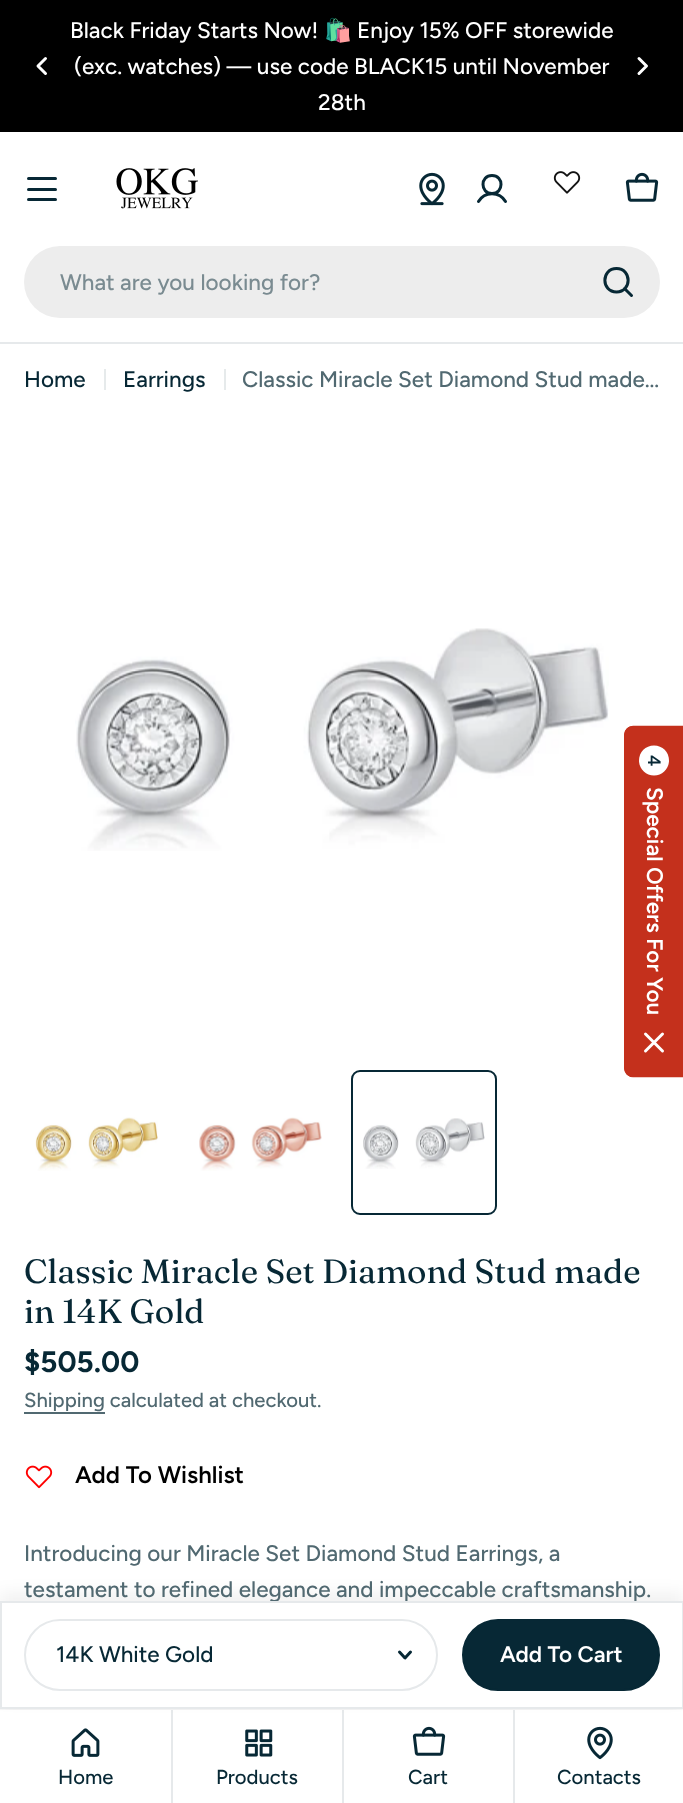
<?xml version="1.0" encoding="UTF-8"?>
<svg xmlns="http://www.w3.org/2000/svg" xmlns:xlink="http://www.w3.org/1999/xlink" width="683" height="1803">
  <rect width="100%" height="100%" fill="#ffffff" />
  <rect width="683" height="132" fill="#000000" />
  <path d="M 45.5 73.5 l -7.5 -7.5 l 7.5 -7.5" fill="none" stroke="#ffffff" stroke-width="3" stroke-linecap="round" stroke-linejoin="round" />
  <path d="M 639 58.5 l 7.5 7.5 l -7.5 7.5" fill="none" stroke="#ffffff" stroke-width="3" stroke-linecap="round" stroke-linejoin="round" />
  <rect x="27" y="188" width="30" height="3" rx="1.5" fill="#072835" />
  <rect x="27" y="177" width="30" height="3" rx="1.5" fill="#072835" />
  <rect x="27" y="198" width="30" height="3" rx="1.5" fill="#072835" />
  <image x="116" y="168" width="82" height="41" xlink:href="image1.png" />
  <image x="419" y="172" width="26" height="34" xlink:href="image2.png" />
  <path d="M 492 193.5 c 12 0 12 -18 0 -18 c -12 0 -12 18 0 18 z m -13.5 8 c 6 -10.5 21 -10.5 27 0" fill="none" stroke="#072835" stroke-width="3" stroke-linecap="round" stroke-linejoin="round" />
  <image x="553" y="171" width="28" height="23" xlink:href="image3.png" />
  <image x="625" y="172" width="34" height="30" xlink:href="image4.png" />
  <rect x="24" y="246" width="636" height="72" rx="36" fill="#ededed" />
  <path d="M 616.5 292 c 15.5 0 15.5 -23.5 0 -23.5 c -15.5 0 -15.5 23.5 0 23.5 z m 8 -3.5 l 7 7" fill="none" stroke="#072835" stroke-width="3" stroke-linecap="round" stroke-linejoin="round" />
  <rect y="342" width="683" height="2" fill="#e6e9eb" />
  <rect x="104" y="369" width="2" height="21" fill="#e6eaeb" />
  <rect x="224" y="369" width="2" height="21" fill="#e6eaeb" />
  <image x="75" y="628" width="534" height="223" xlink:href="image5.png" />
  <image x="35" y="1117" width="123" height="54" xlink:href="image6.png" />
  <image x="199" y="1117" width="123" height="54" xlink:href="image7.png" />
  <image x="363" y="1118" width="122" height="51" xlink:href="image8.png" />
  <rect x="352" y="1071" width="144" height="143" rx="8" fill="none" stroke="#072835" stroke-width="2" />
  <rect x="24" y="1412" width="81" height="2" fill="#516971" />
  <image x="25" y="1465" width="28" height="24" xlink:href="image9.png" />
  <rect x="-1" y="1707" width="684" height="93" fill="#000000" fill-opacity="0.08" filter="blur(7.5px)" />
  <rect y="1710" width="683" height="93" fill="#ffffff" />
  <rect x="171" y="1710" width="2" height="93" fill="#e6e9eb" />
  <rect x="342" y="1710" width="2" height="93" fill="#e6e9eb" />
  <rect x="513" y="1710" width="2" height="93" fill="#e6e9eb" />
  <rect y="1592" width="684" height="108" fill="#000000" fill-opacity="0.05" filter="blur(7.5px)" />
  <image x="71" y="1728" width="29" height="29" xlink:href="image10.png" />
  <image x="245" y="1729" width="28" height="28" xlink:href="image11.png" />
  <image x="412" y="1726" width="34" height="30" xlink:href="image4.png" />
  <image x="587" y="1726" width="26" height="34" xlink:href="image12.png" />
  <path d="M 624 1068 v -333 c 0 -5 4 -9 9 -9 h 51 v 351 h -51 c -5 0 -9 -4 -9 -9 z" fill="#c4301c" />
  <path d="M 625 1068 v -333 c 0 -4.5 3.5 -8.5 8 -8.5 h 50 v 350 h -50 c -4.5 0 -8 -4 -8 -8.5 z" fill="none" stroke="#c4301c" stroke-width="1.5" />
  <path d="M 669 760.5 c 0 8 -6.5 15 -15 15 c -8.5 0 -15 -7 -15 -15 c 0 -8.5 6.5 -15 15 -15 c 8.5 0 15 6.5 15 15 z" fill="#ffffff" />
  <path d="M 662.5 1051 l -17 -17 m 0 17 l 17 -17" fill="none" stroke="#ffffff" stroke-width="3" stroke-linecap="round" stroke-linejoin="round" />
  <text x="70" y="38" style="font-family: Figtree; font-size: 22.5px; font-weight: 500; fill: #ffffff">Black Friday Starts Now!</text>
  <text x="324" y="38" style="font-family: Noto Color Emoji; font-size: 22.5px; fill: #ffffff">🛍️</text>
  <text x="357" y="38" style="font-family: Figtree; font-size: 22.5px; font-weight: 500; fill: #ffffff">Enjoy 15% OFF storewide</text>
  <text x="74" y="74" style="font-family: Figtree; font-size: 22.5px; font-weight: 500; fill: #ffffff">(exc. watches) — use code BLACK15 until November</text>
  <text x="318" y="110" style="font-family: Figtree; font-size: 22.5px; font-weight: 500; fill: #ffffff">28th</text>
  <text x="60" y="290" style="font-family: Figtree; font-size: 22.5px; font-weight: 500; fill: #7a8b91">What are you looking for?</text>
  <text x="24" y="387" style="font-family: Figtree; font-size: 22.5px; font-weight: 500; fill: #072835">Home</text>
  <text x="123" y="387" style="font-family: Figtree; font-size: 22.5px; font-weight: 500; fill: #072835">Earrings</text>
  <text x="242" y="387" style="font-family: Figtree; font-size: 22.5px; font-weight: 500; fill: #516971">Classic Miracle Set Diamond Stud made…</text>
  <text x="24" y="1283" style="font-family: Fraunces; font-size: 33.6px; fill: #072835">Classic Miracle Set Diamond Stud made</text>
  <text x="24" y="1323" style="font-family: Fraunces; font-size: 33.6px; fill: #072835">in 14K Gold</text>
  <text x="24" y="1372" style="font-family: Figtree; font-size: 29.5px; font-weight: bold; fill: #072835">$505.00</text>
  <text x="24" y="1407" style="font-family: Figtree; font-size: 20.25px; font-weight: 500; fill: #516971">Shipping calculated at checkout.</text>
  <text x="75" y="1483" style="font-family: Figtree; font-size: 24px; font-weight: 600; fill: #000000">Add To Wishlist</text>
  <text x="24" y="1561" style="font-family: Figtree; font-size: 22.5px; font-weight: 500; fill: #516971">Introducing our Miracle Set Diamond Stud Earrings, a</text>
  <text x="24" y="1597" style="font-family: Figtree; font-size: 22.5px; font-weight: 500; fill: #516971">testament to refined elegance and impeccable craftsmanship.</text>
  <rect x="1" y="1602" width="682" height="106" fill="#ffffff" stroke="#e6e9eb" stroke-width="2" />
  <rect x="25" y="1620" width="412" height="70" rx="35" fill="none" stroke="#e6e9eb" stroke-width="2" />
  <text x="56" y="1662" style="font-family: Figtree; font-size: 22.5px; font-weight: 500; fill: #072835">14K White Gold</text>
  <path d="M 410.5 1652 l -5.5 6 l -5.5 -6" fill="none" stroke="#072835" stroke-width="3" stroke-linecap="round" stroke-linejoin="round" />
  <rect x="463" y="1620" width="196" height="70" rx="35" fill="#072835" stroke="#072835" stroke-width="2" />
  <text x="500" y="1662" style="font-family: Figtree; font-size: 22.5px; font-weight: 600; fill: #ffffff">Add To Cart</text>
  <text x="58" y="1784" style="font-family: Figtree; font-size: 20.25px; font-weight: 500; fill: #072835">Home</text>
  <text x="216" y="1784" style="font-family: Figtree; font-size: 20.25px; font-weight: 500; fill: #072835">Products</text>
  <text x="408" y="1784" style="font-family: Figtree; font-size: 20.25px; font-weight: 500; fill: #072835">Cart</text>
  <text x="557" y="1784" style="font-family: Figtree; font-size: 20.25px; font-weight: 500; fill: #072835">Contacts</text>
  <text x="648" y="755" transform="rotate(90 648 755)" style="font-family: Figtree; font-size: 18px; font-weight: 600; fill: #072835">4</text>
  <text x="647" y="787" transform="rotate(90 647 787)" style="font-family: Figtree; font-size: 22.5px; font-weight: 600; fill: #ffffff">Special Offers For You</text>
</svg>
